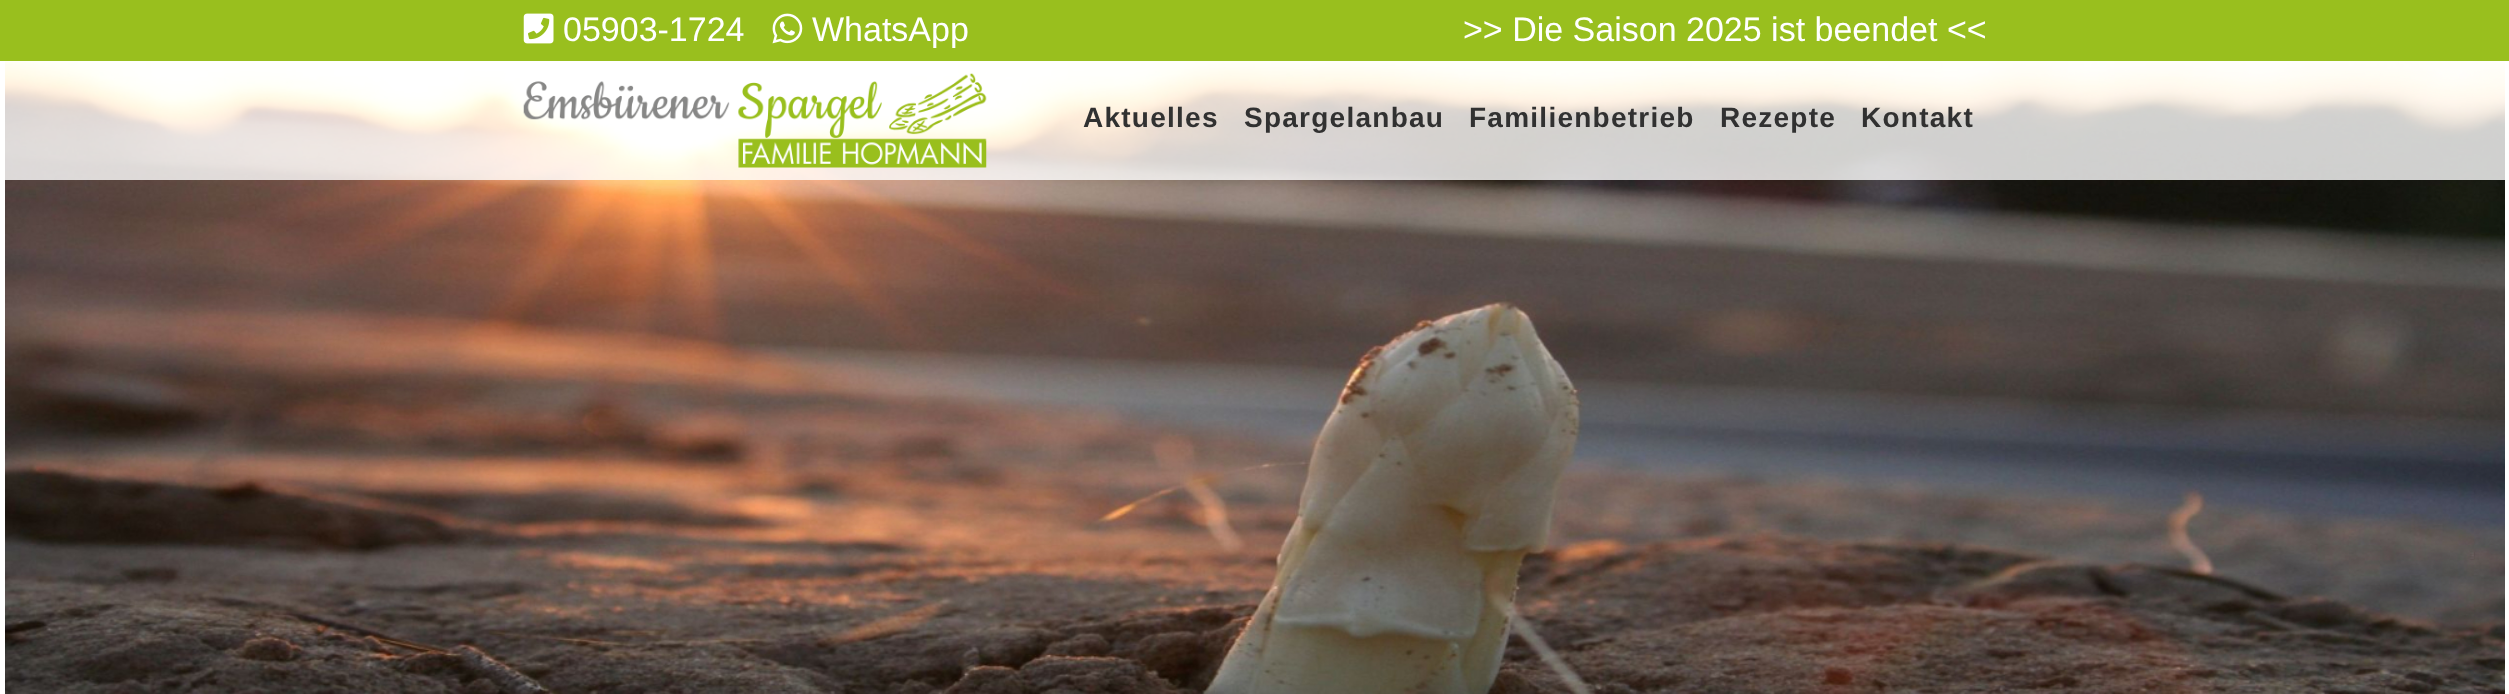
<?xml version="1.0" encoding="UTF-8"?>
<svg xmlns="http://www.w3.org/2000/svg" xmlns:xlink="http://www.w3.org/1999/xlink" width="2509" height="694">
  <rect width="100%" height="100%" fill="#ffffff" />
  <rect width="2509" height="61" fill="#99bf1e" />
  <image x="523" y="13" width="31" height="31" xlink:href="image1.png" />
  <image x="772" y="13" width="31" height="31" xlink:href="image2.png" />
  <image x="5" y="61" width="2500" height="633" xlink:href="image3.png" />
  <rect x="5" y="61" width="2500" height="119" fill="#ffffff" fill-opacity="0.8" />
  <image x="523" y="73" width="464" height="95" xlink:href="image4.png" />
  <text x="563" y="41" style="font-family: Liberation Sans; font-size: 34px; fill: #ffffff">05903-1724</text>
  <text x="812" y="41" style="font-family: Liberation Sans; font-size: 34px; fill: #ffffff">WhatsApp</text>
  <text x="1463" y="41" style="font-family: Liberation Sans; font-size: 34px; fill: #ffffff">&gt;&gt; Die Saison 2025 ist beendet &lt;&lt;</text>
  <text x="1083" y="127" style="font-family: Liberation Sans; font-size: 28px; font-weight: bold; letter-spacing: 1.25px; fill: #313131">Aktuelles</text>
  <text x="1244" y="127" style="font-family: Liberation Sans; font-size: 28px; font-weight: bold; letter-spacing: 1.25px; fill: #313131">Spargelanbau</text>
  <text x="1469" y="127" style="font-family: Liberation Sans; font-size: 28px; font-weight: bold; letter-spacing: 1.25px; fill: #313131">Familienbetrieb</text>
  <text x="1720" y="127" style="font-family: Liberation Sans; font-size: 28px; font-weight: bold; letter-spacing: 1.25px; fill: #313131">Rezepte</text>
  <text x="1861" y="127" style="font-family: Liberation Sans; font-size: 28px; font-weight: bold; letter-spacing: 1.25px; fill: #313131">Kontakt</text>
</svg>
